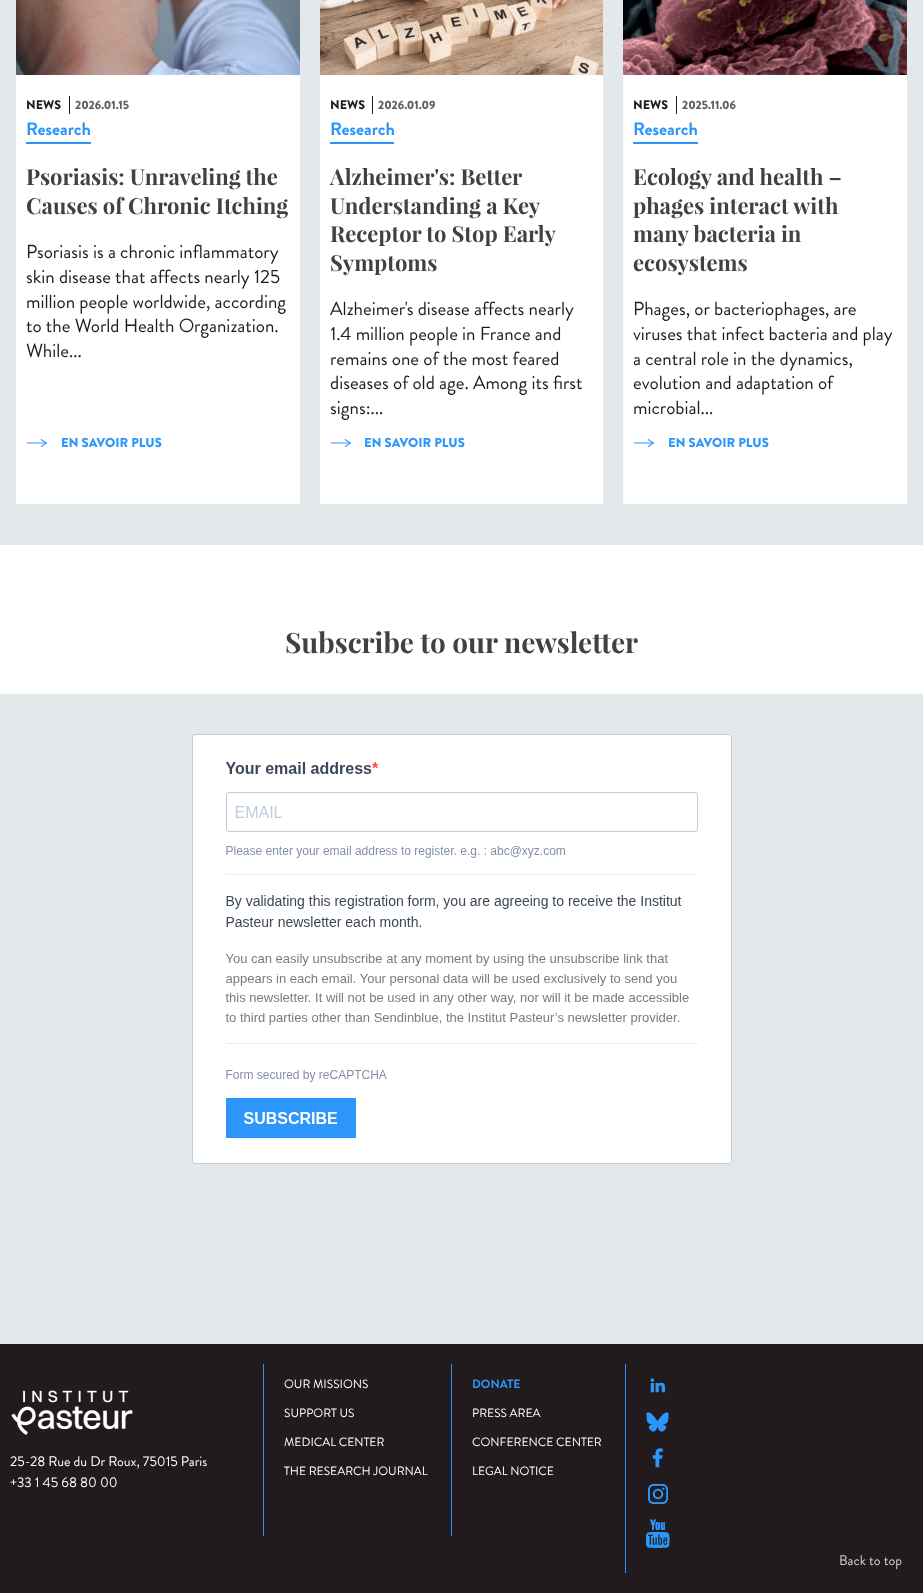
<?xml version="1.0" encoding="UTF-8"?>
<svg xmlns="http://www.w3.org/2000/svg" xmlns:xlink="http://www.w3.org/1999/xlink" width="923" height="1593">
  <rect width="100%" height="100%" fill="#ffffff" />
  <rect width="923" height="545" fill="#e3e9eb" />
  <rect x="16" y="75" width="284" height="429" fill="#ffffff" />
  <image x="16" y="0" width="284" height="75" xlink:href="image1.png" />
  <rect x="69" y="96" width="1" height="18" fill="#211b1d" />
  <rect x="26" y="142" width="65" height="2" fill="#2d96fa" />
  <image x="26" y="439" width="22" height="8" xlink:href="image2.png" />
  <rect x="320" y="75" width="283" height="429" fill="#ffffff" />
  <image x="320" y="0" width="283" height="75" xlink:href="image3.png" />
  <rect x="372" y="96" width="1" height="18" fill="#211b1d" />
  <rect x="330" y="142" width="64" height="2" fill="#2d96fa" />
  <image x="330" y="439" width="22" height="8" xlink:href="image2.png" />
  <rect x="623" y="75" width="284" height="429" fill="#ffffff" />
  <image x="623" y="0" width="284" height="75" xlink:href="image4.png" />
  <rect x="676" y="96" width="1" height="18" fill="#211b1d" />
  <rect x="633" y="142" width="65" height="2" fill="#2d96fa" />
  <image x="633" y="439" width="22" height="8" xlink:href="image2.png" />
  <image x="0" y="694" width="923" height="650" xlink:href="image5.png" />
  <rect y="1344" width="923" height="249" fill="#211b1d" />
  <image x="11" y="1390" width="122" height="45" xlink:href="image6.png" />
  <rect x="263" y="1364" width="1" height="172" fill="#2d96fa" />
  <rect x="451" y="1364" width="1" height="172" fill="#2d96fa" />
  <rect x="625" y="1364" width="1" height="209" fill="#2d96fa" />
  <image x="650" y="1378" width="15" height="15" xlink:href="image7.png" />
  <image x="646" y="1412" width="23" height="20" xlink:href="image8.png" />
  <image x="652" y="1448" width="11" height="20" xlink:href="image9.png" />
  <image x="648" y="1484" width="20" height="20" xlink:href="image10.png" />
  <image x="646" y="1519" width="24" height="29" xlink:href="image11.png" />
  <text x="26" y="109" style="font-family: Brandon Grotesque; font-size: 12.5px; font-weight: 900; fill: #211b1d">NEWS</text>
  <text x="75" y="109" style="font-family: Brandon Grotesque; font-size: 12px; font-weight: 900; fill: #636060">2026.01.15</text>
  <text x="26" y="135" style="font-family: Brandon Grotesque; font-size: 18px; font-weight: bold; fill: #2d96fa">Research</text>
  <text x="26" y="185" style="font-family: Playfair Display; font-size: 22px; font-weight: bold; fill: #414144">Psoriasis: Unraveling the</text>
  <text x="26" y="214" style="font-family: Playfair Display; font-size: 22px; font-weight: bold; fill: #414144">Causes of Chronic Itching</text>
  <text x="26" y="258" style="font-family: Brandon Grotesque; font-size: 19px; fill: #211b1d">Psoriasis is a chronic inflammatory</text>
  <text x="26" y="283" style="font-family: Brandon Grotesque; font-size: 19px; fill: #211b1d">skin disease that affects nearly 125</text>
  <text x="26" y="308" style="font-family: Brandon Grotesque; font-size: 19px; fill: #211b1d">million people worldwide, according</text>
  <text x="26" y="332" style="font-family: Brandon Grotesque; font-size: 19px; fill: #211b1d">to the World Health Organization.</text>
  <text x="26" y="357" style="font-family: Brandon Grotesque; font-size: 19px; fill: #211b1d">While...</text>
  <text x="61" y="447" style="font-family: Brandon Grotesque; font-size: 13px; font-weight: 900; fill: #2d96fa">EN SAVOIR PLUS</text>
  <text x="330" y="109" style="font-family: Brandon Grotesque; font-size: 12.5px; font-weight: 900; fill: #211b1d">NEWS</text>
  <text x="378" y="109" style="font-family: Brandon Grotesque; font-size: 12px; font-weight: 900; fill: #636060">2026.01.09</text>
  <text x="330" y="135" style="font-family: Brandon Grotesque; font-size: 18px; font-weight: bold; fill: #2d96fa">Research</text>
  <text x="330" y="185" style="font-family: Playfair Display; font-size: 22px; font-weight: bold; fill: #414144">Alzheimer's: Better</text>
  <text x="330" y="214" style="font-family: Playfair Display; font-size: 22px; font-weight: bold; fill: #414144">Understanding a Key</text>
  <text x="330" y="242" style="font-family: Playfair Display; font-size: 22px; font-weight: bold; fill: #414144">Receptor to Stop Early</text>
  <text x="330" y="271" style="font-family: Playfair Display; font-size: 22px; font-weight: bold; fill: #414144">Symptoms</text>
  <text x="330" y="315" style="font-family: Brandon Grotesque; font-size: 19px; fill: #211b1d">Alzheimer's disease affects nearly</text>
  <text x="330" y="340" style="font-family: Brandon Grotesque; font-size: 19px; fill: #211b1d">1.4 million people in France and</text>
  <text x="330" y="365" style="font-family: Brandon Grotesque; font-size: 19px; fill: #211b1d">remains one of the most feared</text>
  <text x="330" y="389" style="font-family: Brandon Grotesque; font-size: 19px; fill: #211b1d">diseases of old age. Among its first</text>
  <text x="330" y="414" style="font-family: Brandon Grotesque; font-size: 19px; fill: #211b1d">signs:...</text>
  <text x="364" y="447" style="font-family: Brandon Grotesque; font-size: 13px; font-weight: 900; fill: #2d96fa">EN SAVOIR PLUS</text>
  <text x="633" y="109" style="font-family: Brandon Grotesque; font-size: 12.5px; font-weight: 900; fill: #211b1d">NEWS</text>
  <text x="682" y="109" style="font-family: Brandon Grotesque; font-size: 12px; font-weight: 900; fill: #636060">2025.11.06</text>
  <text x="633" y="135" style="font-family: Brandon Grotesque; font-size: 18px; font-weight: bold; fill: #2d96fa">Research</text>
  <text x="633" y="185" style="font-family: Playfair Display; font-size: 22px; font-weight: bold; fill: #414144">Ecology and health –</text>
  <text x="633" y="214" style="font-family: Playfair Display; font-size: 22px; font-weight: bold; fill: #414144">phages interact with</text>
  <text x="633" y="242" style="font-family: Playfair Display; font-size: 22px; font-weight: bold; fill: #414144">many bacteria in</text>
  <text x="633" y="271" style="font-family: Playfair Display; font-size: 22px; font-weight: bold; fill: #414144">ecosystems</text>
  <text x="633" y="315" style="font-family: Brandon Grotesque; font-size: 19px; fill: #211b1d">Phages, or bacteriophages, are</text>
  <text x="633" y="340" style="font-family: Brandon Grotesque; font-size: 19px; fill: #211b1d">viruses that infect bacteria and play</text>
  <text x="633" y="365" style="font-family: Brandon Grotesque; font-size: 19px; fill: #211b1d">a central role in the dynamics,</text>
  <text x="633" y="389" style="font-family: Brandon Grotesque; font-size: 19px; fill: #211b1d">evolution and adaptation of</text>
  <text x="633" y="414" style="font-family: Brandon Grotesque; font-size: 19px; fill: #211b1d">microbial...</text>
  <text x="668" y="447" style="font-family: Brandon Grotesque; font-size: 13px; font-weight: 900; fill: #2d96fa">EN SAVOIR PLUS</text>
  <text x="285" y="653" style="font-family: Playfair Display; font-size: 28px; font-weight: bold; fill: #414144">Subscribe to our newsletter</text>
  <text x="10" y="1466" style="font-family: Brandon Grotesque; font-size: 14px; fill: #ffffff">25-28 Rue du Dr Roux, 75015 Paris</text>
  <text x="10" y="1487" style="font-family: Brandon Grotesque; font-size: 14px; fill: #ffffff">+33 1 45 68 80 00</text>
  <text x="284" y="1388" style="font-family: Brandon Grotesque; font-size: 12px; fill: #ffffff">OUR MISSIONS</text>
  <text x="284" y="1417" style="font-family: Brandon Grotesque; font-size: 12px; fill: #ffffff">SUPPORT US</text>
  <text x="284" y="1446" style="font-family: Brandon Grotesque; font-size: 12px; fill: #ffffff">MEDICAL CENTER</text>
  <text x="284" y="1475" style="font-family: Brandon Grotesque; font-size: 12px; fill: #ffffff">THE RESEARCH JOURNAL</text>
  <text x="472" y="1388" style="font-family: Brandon Grotesque; font-size: 12px; font-weight: bold; fill: #2d96fa">DONATE</text>
  <text x="472" y="1417" style="font-family: Brandon Grotesque; font-size: 12px; fill: #ffffff">PRESS AREA</text>
  <text x="472" y="1446" style="font-family: Brandon Grotesque; font-size: 12px; fill: #ffffff">CONFERENCE CENTER</text>
  <text x="472" y="1475" style="font-family: Brandon Grotesque; font-size: 12px; fill: #ffffff">LEGAL NOTICE</text>
  <text x="839" y="1565" style="font-family: Brandon Grotesque; font-size: 14px; fill: #d3d1d2">Back to top</text>
</svg>
